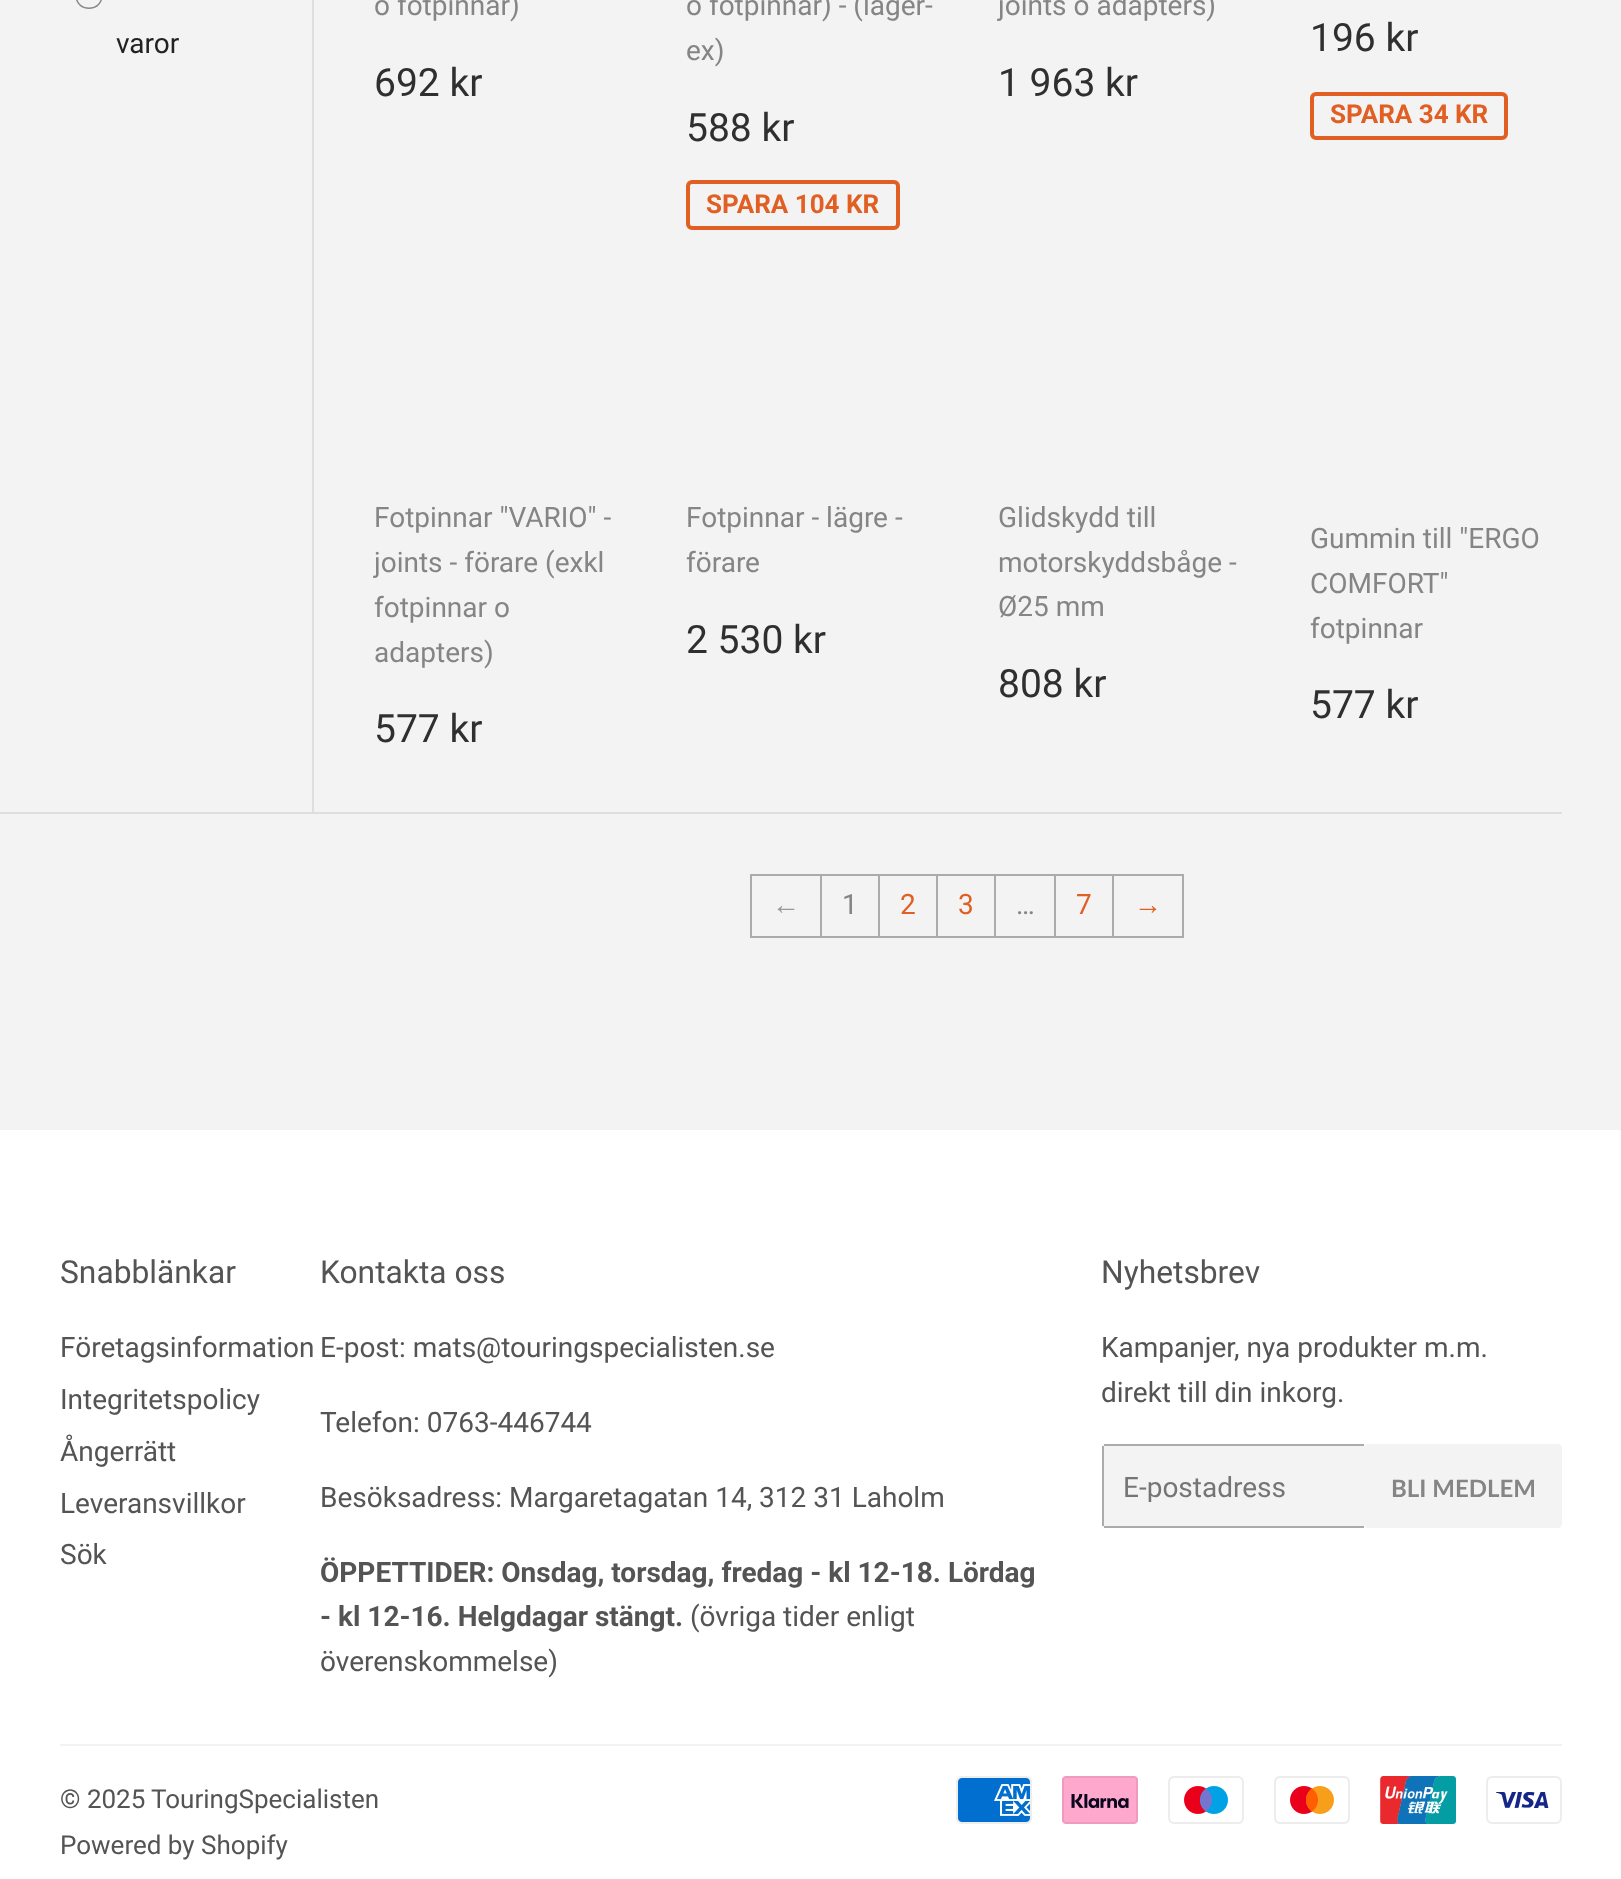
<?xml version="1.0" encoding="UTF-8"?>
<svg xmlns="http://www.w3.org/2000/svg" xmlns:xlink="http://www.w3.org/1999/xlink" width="1621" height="1879">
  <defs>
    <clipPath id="clip1"><rect x="1124" y="1470" width="222" height="32" /></clipPath>
  </defs>
  <rect width="100%" height="100%" fill="#f3f3f3" />
  <path d="M 89 9 c -18.5 0 -18.5 -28.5 0 -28.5 c 18.5 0 18.5 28.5 0 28.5 z m 0 -1.5 c 16.5 0 16.5 -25 0 -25 c -16.5 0 -16.5 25 0 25 z" fill="#888888" />
  <rect x="312" width="2" height="812" fill="#dedede" />
  <rect x="688" y="182" width="210" height="46" rx="4" fill="none" stroke="#e15f22" stroke-width="4" />
  <rect x="1312" y="94" width="194" height="44" rx="4" fill="none" stroke="#e15f22" stroke-width="4" />
  <rect y="812" width="1562" height="2" fill="#dedede" />
  <rect x="751" y="875" width="70" height="62" fill="none" stroke="#ababab" stroke-width="2" />
  <rect x="879" y="875" width="58" height="62" fill="none" stroke="#ababab" stroke-width="2" />
  <rect x="821" y="875" width="58" height="62" fill="none" stroke="#ababab" stroke-width="2" />
  <rect x="937" y="875" width="58" height="62" fill="none" stroke="#ababab" stroke-width="2" />
  <rect x="995" y="875" width="60" height="62" fill="none" stroke="#ababab" stroke-width="2" />
  <rect x="1055" y="875" width="58" height="62" fill="none" stroke="#ababab" stroke-width="2" />
  <rect x="1113" y="875" width="70" height="62" fill="none" stroke="#ababab" stroke-width="2" />
  <rect y="1130" width="1621" height="749" fill="#ffffff" />
  <rect x="1102" y="1444" width="264" height="84" rx="4" fill="#f3f3f3" />
  <rect x="1104" y="1444" width="260" height="2" fill="#ababab" />
  <rect x="1104" y="1526" width="260" height="2" fill="#ababab" />
  <rect x="1102" y="1446" width="2" height="80" fill="#ababab" />
  <path d="M 1366 1444 h 192 c 2 0 4 2 4 4 v 76 c 0 2 -2 4 -4 4 h -192 z" fill="#f3f3f3" />
  <rect x="60" y="1744" width="1502" height="2" fill="#f2f2f2" />
  <image x="956" y="1776" width="76" height="48" xlink:href="image1.png" />
  <image x="1062" y="1776" width="76" height="48" xlink:href="image2.png" />
  <image x="1168" y="1776" width="76" height="48" xlink:href="image3.png" />
  <image x="1274" y="1776" width="76" height="48" xlink:href="image4.png" />
  <image x="1380" y="1776" width="76" height="48" xlink:href="image5.png" />
  <image x="1486" y="1776" width="76" height="48" xlink:href="image6.png" />
  <text x="116" y="53" style="font-family: Roboto; font-size: 28px; fill: #222222">varor</text>
  <text x="374" y="15" style="font-family: Roboto; font-size: 28px; fill: #858585">o fotpinnar)</text>
  <text x="374" y="96" style="font-family: Roboto; font-size: 39px; fill: #2f2f2f">692 kr</text>
  <text x="686" y="15" style="font-family: Roboto; font-size: 28px; fill: #858585">o fotpinnar) - (lager-</text>
  <text x="686" y="60" style="font-family: Roboto; font-size: 28px; fill: #858585">ex)</text>
  <text x="686" y="141" style="font-family: Roboto; font-size: 39px; fill: #2f2f2f">588 kr</text>
  <text x="706" y="213" style="font-family: Roboto; font-size: 26px; font-weight: bold; fill: #e15f22">SPARA 104 KR</text>
  <text x="998" y="15" style="font-family: Roboto; font-size: 28px; fill: #858585">joints o adapters)</text>
  <text x="998" y="96" style="font-family: Roboto; font-size: 39px; fill: #2f2f2f">1 963 kr</text>
  <text x="1310" y="51" style="font-family: Roboto; font-size: 39px; fill: #2f2f2f">196 kr</text>
  <text x="1330" y="123" style="font-family: Roboto; font-size: 26px; font-weight: bold; fill: #e15f22">SPARA 34 KR</text>
  <text x="374" y="527" style="font-family: Roboto; font-size: 28px; fill: #858585">Fotpinnar "VARIO" -</text>
  <text x="374" y="572" style="font-family: Roboto; font-size: 28px; fill: #858585">joints - förare (exkl</text>
  <text x="374" y="617" style="font-family: Roboto; font-size: 28px; fill: #858585">fotpinnar o</text>
  <text x="374" y="662" style="font-family: Roboto; font-size: 28px; fill: #858585">adapters)</text>
  <text x="374" y="742" style="font-family: Roboto; font-size: 39px; fill: #2f2f2f">577 kr</text>
  <text x="686" y="527" style="font-family: Roboto; font-size: 28px; fill: #858585">Fotpinnar - lägre -</text>
  <text x="686" y="572" style="font-family: Roboto; font-size: 28px; fill: #858585">förare</text>
  <text x="686" y="653" style="font-family: Roboto; font-size: 39px; fill: #2f2f2f">2 530 kr</text>
  <text x="998" y="527" style="font-family: Roboto; font-size: 28px; fill: #858585">Glidskydd till</text>
  <text x="998" y="572" style="font-family: Roboto; font-size: 28px; fill: #858585">motorskyddsbåge -</text>
  <text x="998" y="616" style="font-family: Roboto; font-size: 28px; fill: #858585">Ø25 mm</text>
  <text x="998" y="697" style="font-family: Roboto; font-size: 39px; fill: #2f2f2f">808 kr</text>
  <text x="1310" y="548" style="font-family: Roboto; font-size: 28px; fill: #858585">Gummin till "ERGO</text>
  <text x="1310" y="593" style="font-family: Roboto; font-size: 28px; fill: #858585">COMFORT"</text>
  <text x="1310" y="638" style="font-family: Roboto; font-size: 28px; fill: #858585">fotpinnar</text>
  <text x="1310" y="718" style="font-family: Roboto; font-size: 39px; fill: #2f2f2f">577 kr</text>
  <text x="772" y="914" style="font-family: Liberation Sans; font-size: 28px; fill: #999999">←</text>
  <text x="842" y="914" style="font-family: Roboto; font-size: 28px; fill: #858585">1</text>
  <text x="900" y="914" style="font-family: Roboto; font-size: 28px; fill: #e15f22">2</text>
  <text x="958" y="914" style="font-family: Roboto; font-size: 28px; fill: #e15f22">3</text>
  <text x="1016" y="914" style="font-family: Roboto; font-size: 28px; fill: #858585">…</text>
  <text x="1076" y="914" style="font-family: Roboto; font-size: 28px; fill: #e15f22">7</text>
  <text x="1134" y="914" style="font-family: Liberation Sans; font-size: 28px; fill: #e15f22">→</text>
  <text x="60" y="1283" style="font-family: Roboto; font-size: 31.75px; fill: #545454">Snabblänkar</text>
  <text x="60" y="1357" style="font-family: Roboto; font-size: 28px; fill: #545454">Företagsinformation</text>
  <text x="60" y="1409" style="font-family: Roboto; font-size: 28px; fill: #545454">Integritetspolicy</text>
  <text x="60" y="1461" style="font-family: Roboto; font-size: 28px; fill: #545454">Ångerrätt</text>
  <text x="60" y="1513" style="font-family: Roboto; font-size: 28px; fill: #545454">Leveransvillkor</text>
  <text x="60" y="1564" style="font-family: Roboto; font-size: 28px; fill: #545454">Sök</text>
  <text x="320" y="1283" style="font-family: Roboto; font-size: 31.75px; fill: #545454">Kontakta oss</text>
  <text x="320" y="1357" style="font-family: Roboto; font-size: 28px; fill: #545454">E-post: mats@touringspecialisten.se</text>
  <text x="320" y="1432" style="font-family: Roboto; font-size: 28px; fill: #545454">Telefon: 0763-446744</text>
  <text x="320" y="1507" style="font-family: Roboto; font-size: 28px; fill: #545454">Besöksadress: Margaretagatan 14, 312 31 Laholm</text>
  <text x="320" y="1582" style="font-family: Roboto; font-size: 28px; font-weight: bold; fill: #545454">ÖPPETTIDER: Onsdag, torsdag, fredag - kl 12-18. Lördag</text>
  <text x="320" y="1626" style="font-family: Roboto; font-size: 28px; font-weight: bold; fill: #545454">- kl 12-16. Helgdagar stängt.</text>
  <text x="690" y="1626" style="font-family: Roboto; font-size: 28px; fill: #545454">(övriga tider enligt</text>
  <text x="320" y="1671" style="font-family: Roboto; font-size: 28px; fill: #545454">överenskommelse)</text>
  <text x="1101" y="1283" style="font-family: Roboto; font-size: 31.75px; fill: #545454">Nyhetsbrev</text>
  <text x="1101" y="1357" style="font-family: Roboto; font-size: 28px; fill: #545454">Kampanjer, nya produkter m.m.</text>
  <text x="1101" y="1402" style="font-family: Roboto; font-size: 28px; fill: #545454">direkt till din inkorg.</text>
  <g clip-path="url(#clip1)">
    <text x="1123" y="1497" style="font-family: Roboto; font-size: 28px; fill: #757575">E-postadress</text>
  </g>
  <text x="1391" y="1497" style="font-family: Lato; font-size: 24px; font-weight: bold; fill: #858585">BLI MEDLEM</text>
  <text x="60" y="1808" style="font-family: Roboto; font-size: 26px; fill: #545454">© 2025</text>
  <text x="151" y="1808" style="font-family: Roboto; font-size: 26px; fill: #545454">TouringSpecialisten</text>
  <text x="60" y="1854" style="font-family: Roboto; font-size: 26px; fill: #545454">Powered by Shopify</text>
</svg>
